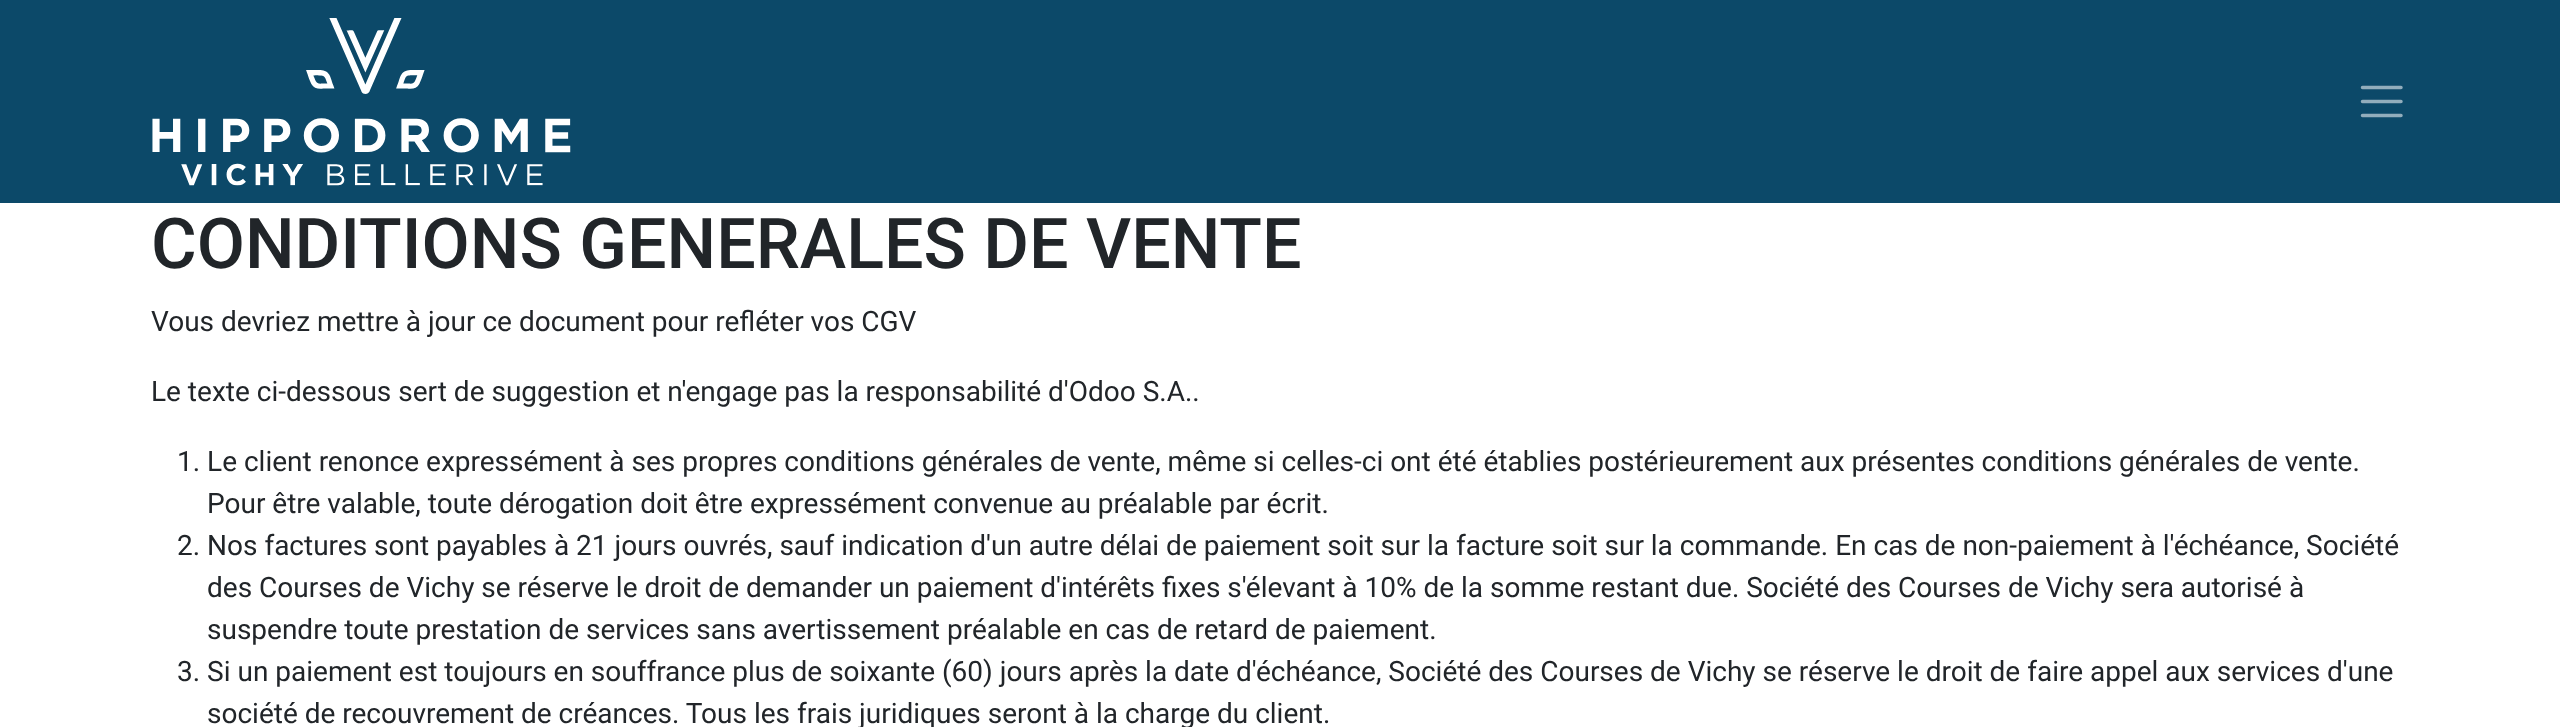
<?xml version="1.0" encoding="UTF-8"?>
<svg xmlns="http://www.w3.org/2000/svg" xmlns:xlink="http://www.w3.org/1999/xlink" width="2560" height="727">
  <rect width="100%" height="100%" fill="#ffffff" />
  <rect width="2560" height="203" fill="#0c4969" />
  <image x="152" y="18" width="419" height="168" xlink:href="image1.png" />
  <path d="M 2362.5 87.5 h 38.5 m -38.5 14 h 38.5 m -38.5 14 h 38.5" fill="none" stroke="#92adbc" stroke-width="3.5" stroke-linecap="round" />
  <text x="151" y="268" style="font-family: Roboto; font-size: 70px; font-weight: 500; fill: #212529">CONDITIONS GENERALES DE VENTE</text>
  <text x="151" y="331" style="font-family: Roboto; font-size: 28px; fill: #212529">Vous devriez mettre à jour ce document pour refléter vos CGV</text>
  <text x="151" y="401" style="font-family: Roboto; font-size: 28px; fill: #212529">Le texte ci-dessous sert de suggestion et n'engage pas la responsabilité d'Odoo S.A..</text>
  <text x="177" y="471" style="font-family: Roboto; font-size: 28px; fill: #212529">1. Le client renonce expressément à ses propres conditions générales de vente, même si celles-ci ont été établies postérieurement aux présentes conditions générales de vente.</text>
  <text x="207" y="513" style="font-family: Roboto; font-size: 28px; fill: #212529">Pour être valable, toute dérogation doit être expressément convenue au préalable par écrit.</text>
  <text x="177" y="555" style="font-family: Roboto; font-size: 28px; fill: #212529">2. Nos factures sont payables à 21 jours ouvrés, sauf indication d'un autre délai de paiement soit sur la facture soit sur la commande. En cas de non-paiement à l'échéance, Société</text>
  <text x="207" y="597" style="font-family: Roboto; font-size: 28px; fill: #212529">des Courses de Vichy se réserve le droit de demander un paiement d'intérêts fixes s'élevant à 10% de la somme restant due. Société des Courses de Vichy sera autorisé à</text>
  <text x="207" y="639" style="font-family: Roboto; font-size: 28px; fill: #212529">suspendre toute prestation de services sans avertissement préalable en cas de retard de paiement.</text>
  <text x="177" y="681" style="font-family: Roboto; font-size: 28px; fill: #212529">3. Si un paiement est toujours en souffrance plus de soixante (60) jours après la date d'échéance, Société des Courses de Vichy se réserve le droit de faire appel aux services d'une</text>
  <text x="207" y="723" style="font-family: Roboto; font-size: 28px; fill: #212529">société de recouvrement de créances. Tous les frais juridiques seront à la charge du client.</text>
</svg>
